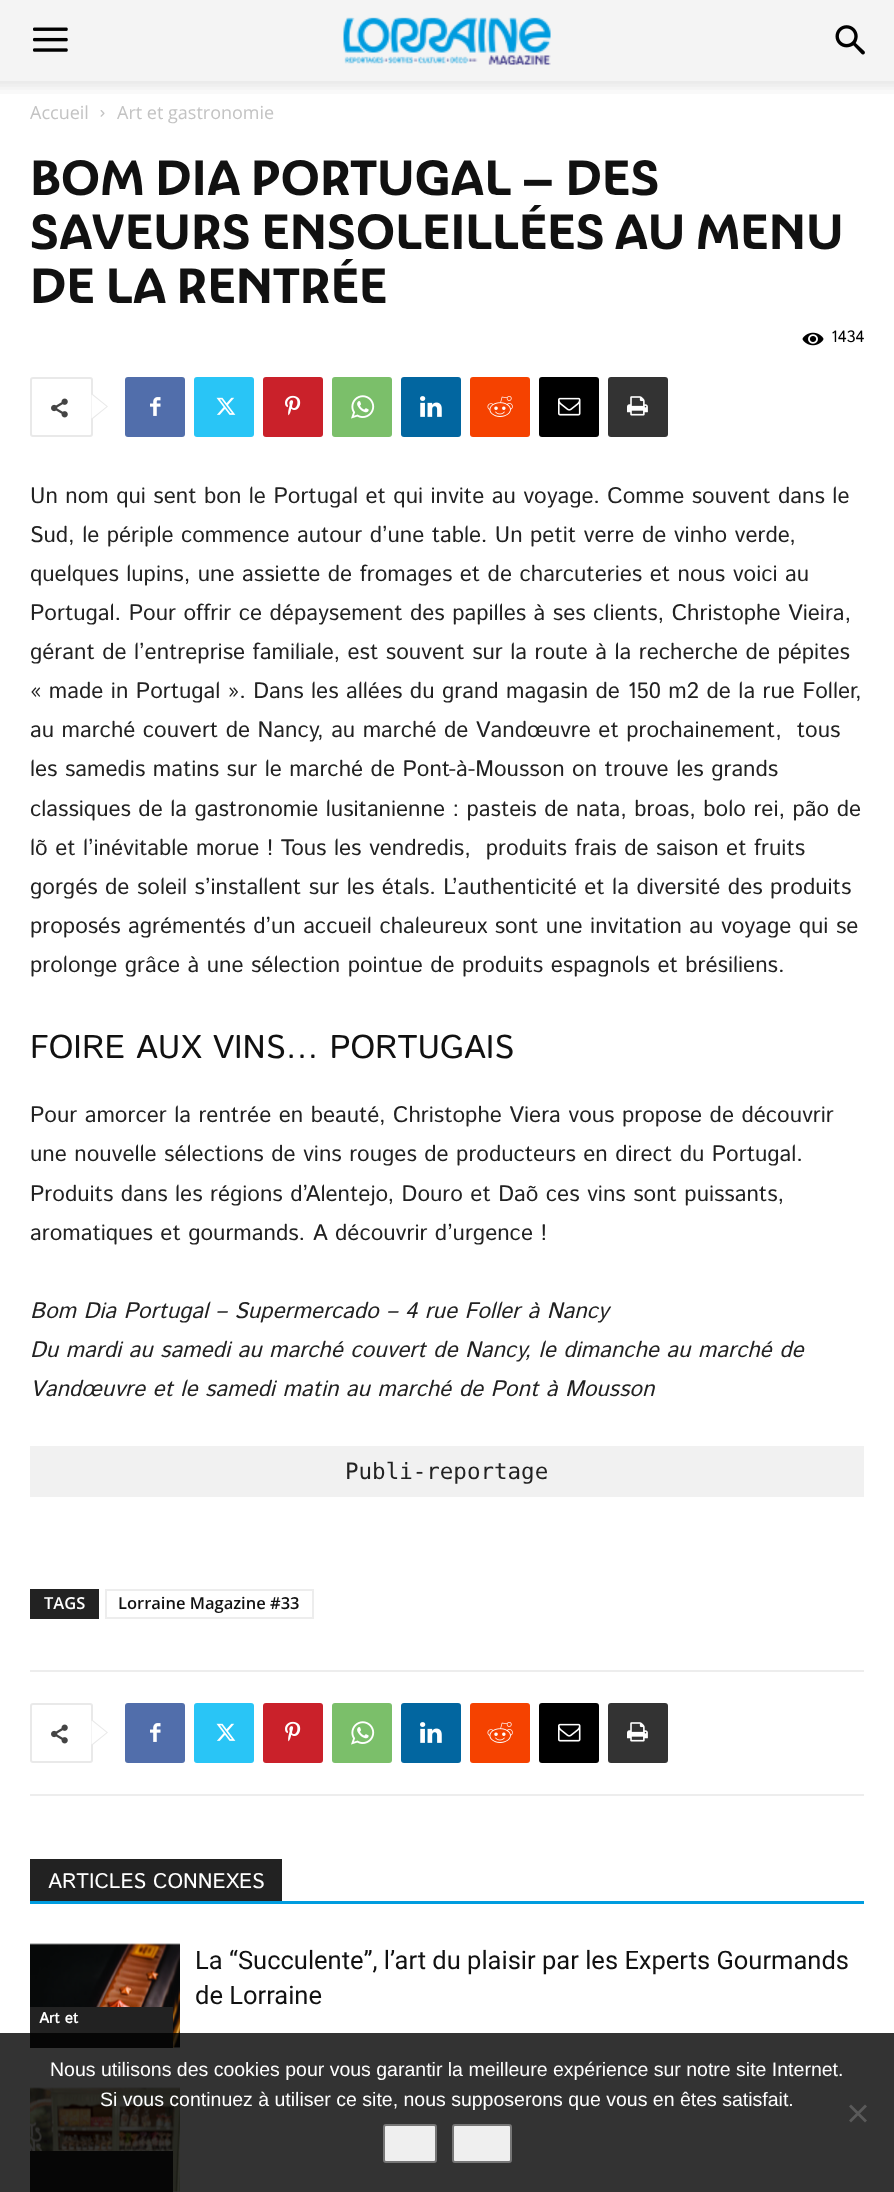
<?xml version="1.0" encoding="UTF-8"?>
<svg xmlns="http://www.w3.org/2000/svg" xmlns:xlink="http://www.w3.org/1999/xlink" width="894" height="2192">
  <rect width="100%" height="100%" fill="#ffffff" />
  <rect width="894" height="81" fill="#f4f4f4" />
  <image x="33" y="27" width="35" height="25" xlink:href="image1.png" />
  <image x="343" y="17" width="208" height="48" xlink:href="image2.png" />
  <image x="835" y="25" width="30" height="30" xlink:href="image3.png" />
  <image x="0" y="81" width="894" height="13" xlink:href="image4.png" />
  <image x="100" y="110" width="5" height="7" xlink:href="image5.png" />
  <image x="802" y="332" width="22" height="14" xlink:href="image6.png" />
  <rect x="31" y="378" width="61" height="58" rx="2" fill="none" stroke="#e9e9e9" stroke-width="2" />
  <path d="M 91.5 420 v -27 l 16.5 13.5 z" fill="#e9e9e9" />
  <image x="51" y="398" width="17" height="20" xlink:href="image7.png" />
  <path d="M 91.5 418.5 v -24 l 15 12 z" fill="#ffffff" />
  <rect x="125" y="377" width="60" height="60" rx="3" fill="#516eab" />
  <image x="150" y="397" width="11" height="19" xlink:href="image8.png" />
  <rect x="194" y="377" width="60" height="60" rx="3" fill="#29c5f6" />
  <image x="216" y="397" width="20" height="18" xlink:href="image9.png" />
  <rect x="263" y="377" width="60" height="60" rx="3" fill="#ca212a" />
  <image x="285" y="395" width="16" height="21" xlink:href="image10.png" />
  <rect x="332" y="377" width="60" height="60" rx="3" fill="#7bbf6a" />
  <image x="351" y="395" width="24" height="24" xlink:href="image11.png" />
  <rect x="401" y="377" width="60" height="60" rx="3" fill="#0266a0" />
  <image x="420" y="396" width="22" height="21" xlink:href="image12.png" />
  <rect x="470" y="377" width="60" height="60" rx="3" fill="#f54200" />
  <image x="487" y="396" width="26" height="21" xlink:href="image13.png" />
  <rect x="539" y="377" width="60" height="60" rx="3" fill="#000000" />
  <image x="558" y="397" width="23" height="19" xlink:href="image14.png" />
  <rect x="608" y="377" width="60" height="60" rx="3" fill="#333333" />
  <image x="627" y="396" width="21" height="20" xlink:href="image15.png" />
  <rect x="30" y="1446" width="834" height="51" fill="#f1f1f1" />
  <rect x="30" y="1589" width="69" height="30" fill="#222222" />
  <rect x="106" y="1590" width="207" height="28" fill="none" stroke="#ededed" stroke-width="2" />
  <rect x="30" y="1670" width="834" height="2" fill="#ededed" />
  <rect x="30" y="1794" width="834" height="2" fill="#ededed" />
  <rect x="31" y="1704" width="61" height="58" rx="2" fill="none" stroke="#e9e9e9" stroke-width="2" />
  <path d="M 91.5 1746 v -27 l 16.5 13.5 z" fill="#e9e9e9" />
  <image x="51" y="1724" width="17" height="20" xlink:href="image7.png" />
  <path d="M 91.5 1744.5 v -24 l 15 12 z" fill="#ffffff" />
  <rect x="125" y="1703" width="60" height="60" rx="3" fill="#516eab" />
  <image x="150" y="1723" width="11" height="19" xlink:href="image8.png" />
  <rect x="194" y="1703" width="60" height="60" rx="3" fill="#29c5f6" />
  <image x="216" y="1723" width="20" height="18" xlink:href="image9.png" />
  <rect x="263" y="1703" width="60" height="60" rx="3" fill="#ca212a" />
  <image x="285" y="1721" width="16" height="21" xlink:href="image10.png" />
  <rect x="332" y="1703" width="60" height="60" rx="3" fill="#7bbf6a" />
  <image x="351" y="1721" width="24" height="24" xlink:href="image11.png" />
  <rect x="401" y="1703" width="60" height="60" rx="3" fill="#0266a0" />
  <image x="420" y="1722" width="22" height="21" xlink:href="image12.png" />
  <rect x="470" y="1703" width="60" height="60" rx="3" fill="#f54200" />
  <image x="487" y="1722" width="26" height="21" xlink:href="image13.png" />
  <rect x="539" y="1703" width="60" height="60" rx="3" fill="#000000" />
  <image x="558" y="1723" width="23" height="19" xlink:href="image14.png" />
  <rect x="608" y="1703" width="60" height="60" rx="3" fill="#333333" />
  <image x="627" y="1722" width="21" height="20" xlink:href="image15.png" />
  <rect x="30" y="1901" width="834" height="3" fill="#009cdf" />
  <rect x="30" y="1859" width="252" height="42" fill="#222222" />
  <image x="30" y="1943" width="150" height="105" xlink:href="image16.png" />
  <rect x="30" y="2007" width="143" height="41" fill="#222222" />
  <image x="30" y="2087" width="150" height="105" xlink:href="image17.png" />
  <rect x="30" y="2151" width="143" height="41" fill="#222222" />
  <rect y="2033" width="894" height="159" fill="#000000" fill-opacity="0.8" />
  <path d="M 865 2104.5 l 2 2 l -16 16 l -2 -2 z" fill="#5a5a5a" />
  <path d="M 849 2106.5 l 2 -2 l 16 16 l -2 2 z" fill="#5a5a5a" />
  <rect x="384" y="2125" width="52" height="37" rx="2" fill="#efefef" stroke="#767676" stroke-width="2" />
  <rect x="453" y="2125" width="58" height="37" rx="2" fill="#efefef" stroke="#767676" stroke-width="2" />
  <text x="30" y="119" style="font-family: Open Sans; font-size: 18px; fill: #c3c3c3">Accueil</text>
  <text x="117" y="119" style="font-family: Open Sans; font-size: 18px; fill: #c3c3c3">Art et gastronomie</text>
  <text x="30" y="195" style="font-family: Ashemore; font-size: 48px; font-weight: bold; fill: #111111">BOM DIA PORTUGAL – DES</text>
  <text x="30" y="249" style="font-family: Ashemore; font-size: 48px; font-weight: bold; fill: #111111">SAVEURS ENSOLEILLÉES AU MENU</text>
  <text x="30" y="303" style="font-family: Ashemore; font-size: 48px; font-weight: bold; fill: #111111">DE LA RENTRÉE</text>
  <text x="831" y="342" style="font-family: Istok Web; font-size: 16.5px; fill: #000000">1434</text>
  <text x="30" y="503" style="font-family: Istok Web; font-size: 22.5px; fill: #222222">Un nom qui sent bon le Portugal et qui invite au voyage. Comme souvent dans le</text>
  <text x="30" y="542" style="font-family: Istok Web; font-size: 22.5px; fill: #222222">Sud, le périple commence autour d’une table. Un petit verre de vinho verde,</text>
  <text x="30" y="581" style="font-family: Istok Web; font-size: 22.5px; fill: #222222">quelques lupins, une assiette de fromages et de charcuteries et nous voici au</text>
  <text x="30" y="620" style="font-family: Istok Web; font-size: 22.5px; fill: #222222">Portugal. Pour offrir ce dépaysement des papilles à ses clients, Christophe Vieira,</text>
  <text x="30" y="659" style="font-family: Istok Web; font-size: 22.5px; fill: #222222">gérant de l’entreprise familiale, est souvent sur la route à la recherche de pépites</text>
  <text x="30" y="698" style="font-family: Istok Web; font-size: 22.5px; fill: #222222">« made in Portugal ». Dans les allées du grand magasin de 150 m2 de la rue Foller,</text>
  <text x="30" y="737" style="font-family: Istok Web; font-size: 22.5px; fill: #222222" xml:space="preserve">au marché couvert de Nancy, au marché de Vandœuvre et prochainement,  tous</text>
  <text x="30" y="776" style="font-family: Istok Web; font-size: 22.5px; fill: #222222">les samedis matins sur le marché de Pont-à-Mousson on trouve les grands</text>
  <text x="30" y="816" style="font-family: Istok Web; font-size: 22.5px; fill: #222222">classiques de la gastronomie lusitanienne : pasteis de nata, broas, bolo rei, pão de</text>
  <text x="30" y="855" style="font-family: Istok Web; font-size: 22.5px; fill: #222222" xml:space="preserve">lõ et l’inévitable morue ! Tous les vendredis,  produits frais de saison et fruits</text>
  <text x="30" y="894" style="font-family: Istok Web; font-size: 22.5px; fill: #222222">gorgés de soleil s’installent sur les étals. L’authenticité et la diversité des produits</text>
  <text x="30" y="933" style="font-family: Istok Web; font-size: 22.5px; fill: #222222">proposés agrémentés d’un accueil chaleureux sont une invitation au voyage qui se</text>
  <text x="30" y="972" style="font-family: Istok Web; font-size: 22.5px; fill: #222222">prolonge grâce à une sélection pointue de produits espagnols et brésiliens.</text>
  <text x="30" y="1058" style="font-family: Istok Web; font-size: 33px; fill: #111111">FOIRE AUX VINS… PORTUGAIS</text>
  <text x="30" y="1122" style="font-family: Istok Web; font-size: 22.5px; fill: #222222">Pour amorcer la rentrée en beauté, Christophe Viera vous propose de découvrir</text>
  <text x="30" y="1161" style="font-family: Istok Web; font-size: 22.5px; fill: #222222">une nouvelle sélections de vins rouges de producteurs en direct du Portugal.</text>
  <text x="30" y="1201" style="font-family: Istok Web; font-size: 22.5px; fill: #222222">Produits dans les régions d’Alentejo, Douro et Daõ ces vins sont puissants,</text>
  <text x="30" y="1240" style="font-family: Istok Web; font-size: 22.5px; fill: #222222">aromatiques et gourmands. A découvrir d’urgence !</text>
  <text x="30" y="1318" style="font-family: Istok Web; font-size: 22.5px; font-style: italic; fill: #222222">Bom Dia Portugal – Supermercado – 4 rue Foller à Nancy</text>
  <text x="30" y="1357" style="font-family: Istok Web; font-size: 22.5px; font-style: italic; fill: #222222">Du mardi au samedi au marché couvert de Nancy, le dimanche au marché de</text>
  <text x="30" y="1396" style="font-family: Istok Web; font-size: 22.5px; font-style: italic; fill: #222222">Vandœuvre et le samedi matin au marché de Pont à Mousson</text>
  <text x="345" y="1479" style="font-family: DejaVu Sans Mono; font-size: 22.5px; fill: #222222">Publi-reportage</text>
  <text x="44" y="1609" style="font-family: Open Sans; font-size: 16.5px; font-weight: 600; fill: #ffffff">TAGS</text>
  <text x="118" y="1609" style="font-family: Open Sans; font-size: 16.5px; font-weight: 600; fill: #111111">Lorraine Magazine #33</text>
  <text x="48" y="1888" style="font-family: Istok Web; font-size: 21px; fill: #ffffff">ARTICLES CONNEXES</text>
  <text x="195" y="1969" style="font-family: Roboto; font-size: 25.5px; fill: #111111">La “Succulente”, l’art du plaisir par les Experts Gourmands</text>
  <text x="195" y="2004" style="font-family: Roboto; font-size: 25.5px; fill: #111111">de Lorraine</text>
  <text x="39" y="2023" style="font-family: Istok Web; font-size: 15px; font-weight: bold; fill: #ffffff">Art et</text>
  <text x="50" y="2076" style="font-family: Liberation Sans; font-size: 19.5px; fill: #ffffff">Nous utilisons des cookies pour vous garantir la meilleure expérience sur notre site Internet.</text>
  <text x="100" y="2106" style="font-family: Liberation Sans; font-size: 19.5px; fill: #ffffff">Si vous continuez à utiliser ce site, nous supposerons que vous en êtes satisfait.</text>
</svg>
